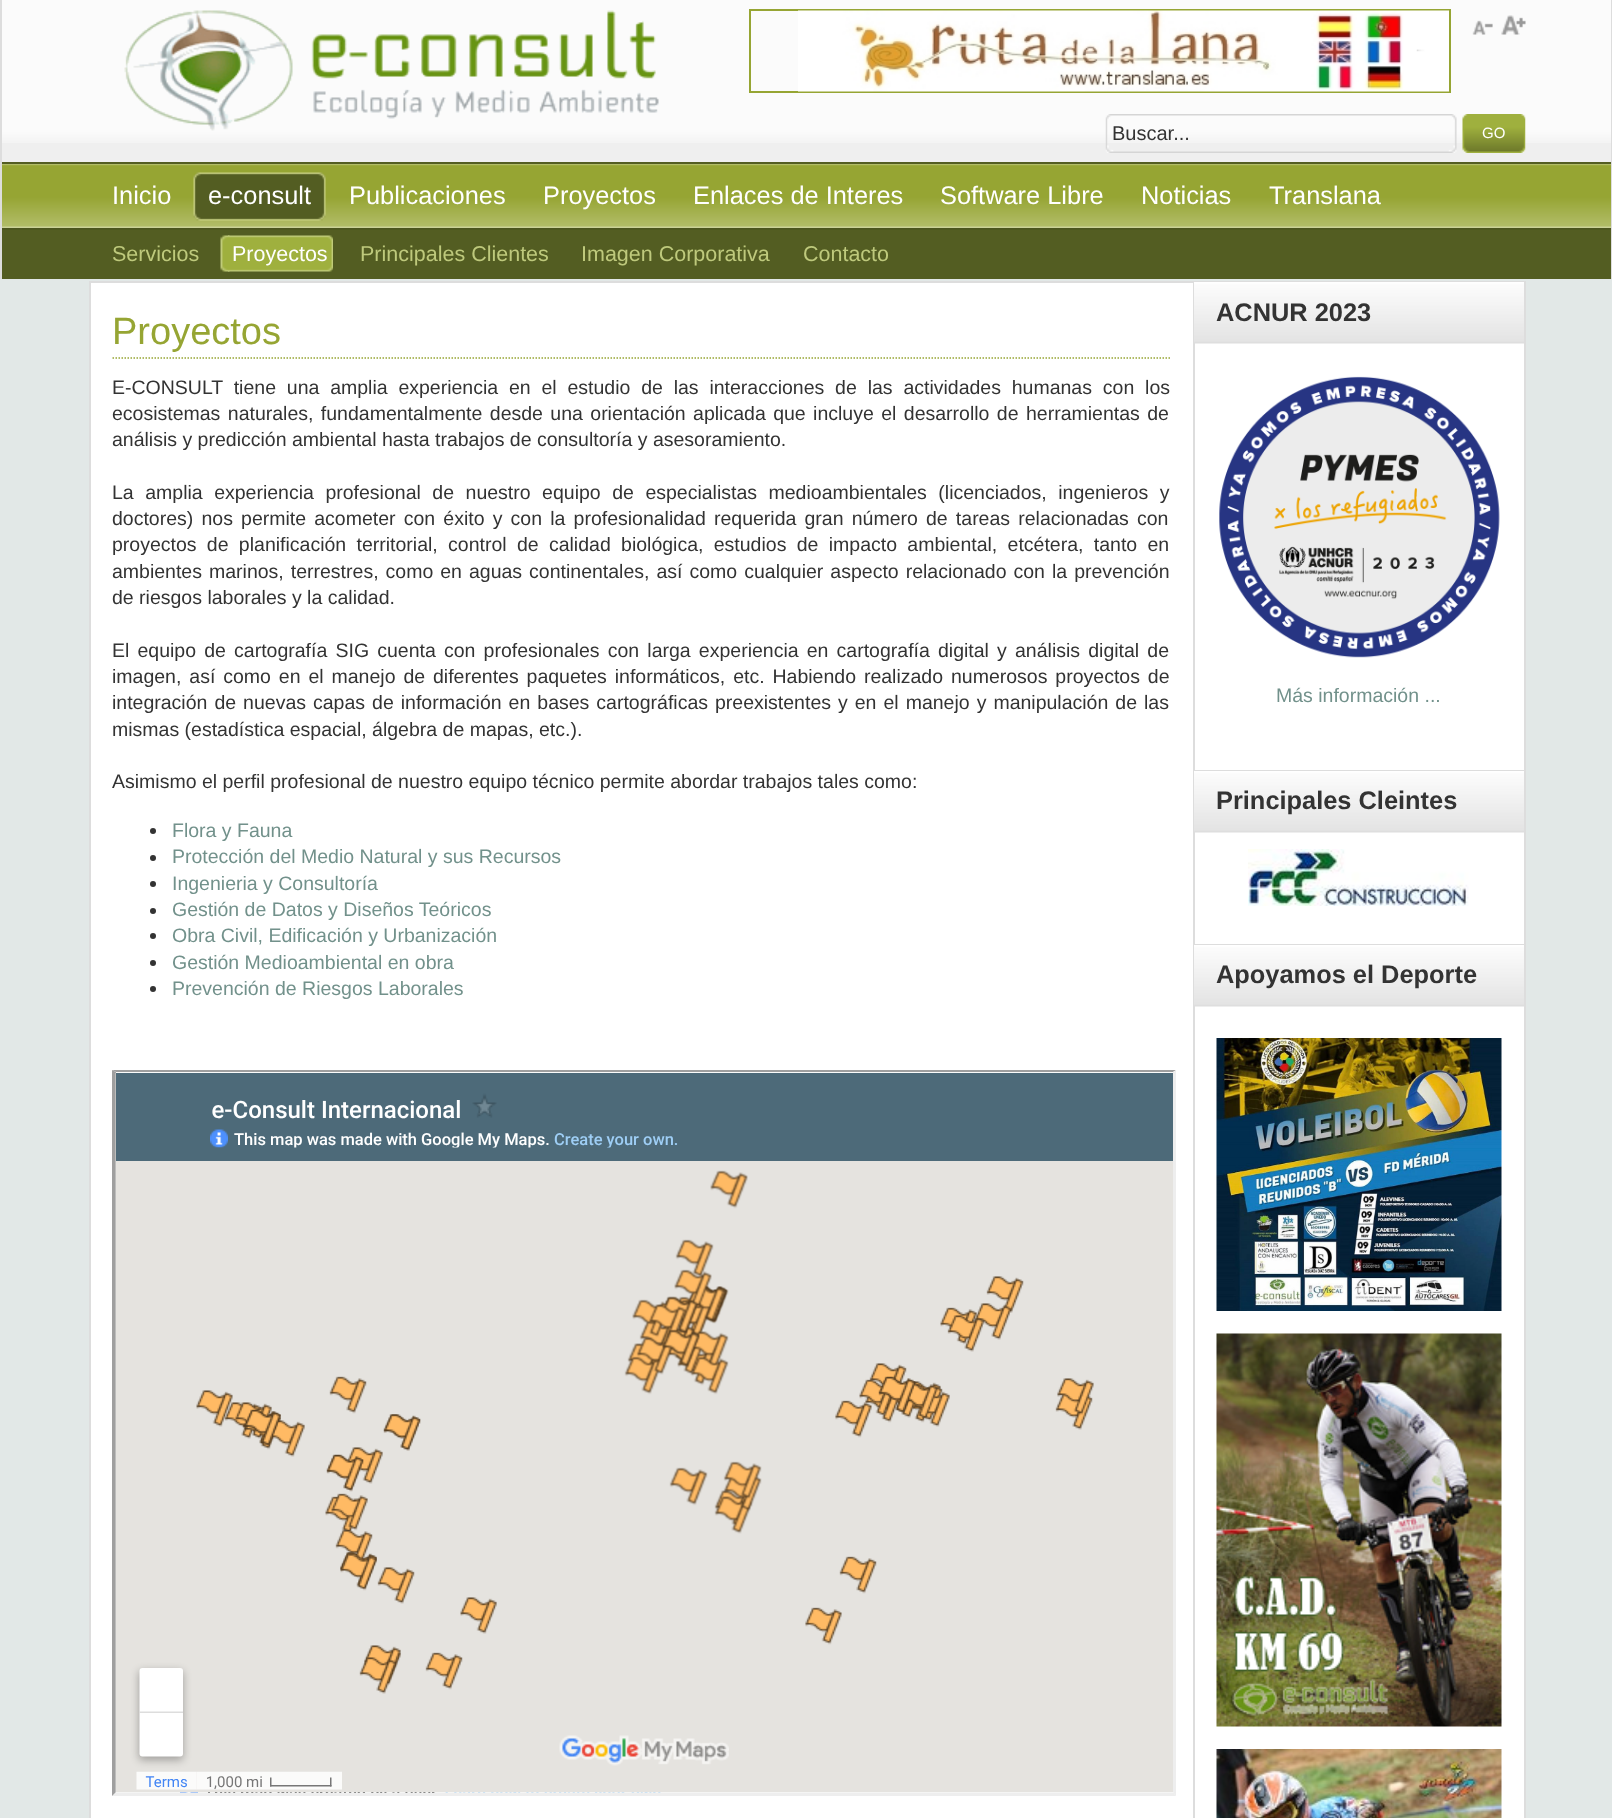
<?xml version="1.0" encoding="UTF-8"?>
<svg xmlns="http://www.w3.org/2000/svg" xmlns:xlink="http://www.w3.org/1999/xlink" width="1612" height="1818">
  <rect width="100%" height="100%" fill="#e2e8e7" />
  <rect x="2" y="143" width="1609" height="19" fill="#efefef" />
  <image x="2" y="0" width="1609" height="143" xlink:href="image1.png" />
  <image x="124" y="10" width="535" height="121" xlink:href="image2.png" />
  <rect x="750" y="10" width="700" height="82" fill="none" stroke="#96a533" stroke-width="2" />
  <image x="798" y="10" width="651" height="82" xlink:href="image3.png" />
  <image x="1472" y="20" width="21" height="15" xlink:href="image4.png" />
  <image x="1501" y="15" width="25" height="20" xlink:href="image5.png" />
  <image x="1105" y="114" width="352" height="39" xlink:href="image6.png" />
  <image x="1462" y="114" width="64" height="39" xlink:href="image7.png" />
  <rect x="2" y="228" width="1609" height="51" fill="#535d22" />
  <image x="2" y="228" width="1609" height="2" xlink:href="image8.png" />
  <rect x="2" y="164" width="1609" height="64" fill="#96a533" />
  <image x="2" y="164" width="1609" height="64" xlink:href="image9.png" />
  <rect y="162" width="1612" height="2" fill="#535d22" />
  <rect x="1611" width="1" height="279" fill="#dddddd" />
  <rect width="2" height="279" fill="#dddddd" />
  <image x="193" y="172" width="8" height="49" xlink:href="image10.png" />
  <image x="201" y="172" width="125" height="49" xlink:href="image11.png" />
  <image x="220" y="235" width="10" height="37" xlink:href="image12.png" />
  <image x="228" y="235" width="105" height="37" xlink:href="image13.png" />
  <rect x="91" y="283" width="1433" height="1535" fill="#ffffff" />
  <rect x="1524" y="281" width="2" height="1537" fill="#dddddd" />
  <rect x="89" y="281" width="2" height="1537" fill="#dddddd" />
  <rect x="90" y="281" width="1103" height="2" fill="#dddddd" />
  <path d="M 112.5 358 h 1057.5" fill="none" stroke="#96a533" stroke-width="1.5" stroke-dasharray="1.5 1.5" />
  <circle cx="153" cy="831" r="3" fill="#333333" />
  <circle cx="153" cy="858" r="3" fill="#333333" />
  <circle cx="153" cy="884" r="3" fill="#333333" />
  <circle cx="153" cy="911" r="3" fill="#333333" />
  <circle cx="153" cy="936" r="3" fill="#333333" />
  <circle cx="153" cy="963" r="3" fill="#333333" />
  <circle cx="153" cy="989" r="3" fill="#333333" />
  <path d="M 112 1070 h 1064 l -3 2 h -1057 z" fill="#9f9f9f" />
  <path d="M 1176 1070 v 726 l -3 -4 v -720 z" fill="#eeeeee" />
  <path d="M 1176 1796 h -1064 l 4 -4 h 1057 z" fill="#eeeeee" />
  <path d="M 112 1796 v -726 l 4 2 v 720 z" fill="#9f9f9f" />
  <image x="115" y="1072" width="1058" height="721" xlink:href="image14.png" />
  <rect x="1193" y="281" width="2" height="1537" fill="#dddddd" />
  <rect x="1194" y="281" width="330" height="1" fill="#dddddd" />
  <image x="1194" y="282" width="330" height="62" xlink:href="image15.png" />
  <image x="1219" y="376" width="281" height="282" xlink:href="image16.png" />
  <rect x="1194" y="770" width="330" height="1" fill="#dddddd" />
  <image x="1194" y="771" width="330" height="62" xlink:href="image15.png" />
  <image x="1248" y="849" width="221" height="57" xlink:href="image17.png" />
  <rect x="1194" y="944" width="330" height="1" fill="#dddddd" />
  <image x="1194" y="945" width="330" height="62" xlink:href="image15.png" />
  <image x="1216" y="1038" width="286" height="273" xlink:href="image18.png" />
  <image x="1216" y="1333" width="286" height="394" xlink:href="image19.png" />
  <image x="1216" y="1749" width="286" height="69" xlink:href="image20.png" />
  <text x="1112" y="140" style="font-family: Liberation Sans; font-size: 20px; fill: #333333">Buscar...</text>
  <text x="1482" y="138" style="font-family: Liberation Sans; font-size: 15px; fill: #ffffff">GO</text>
  <text x="112" y="204" style="font-family: Liberation Sans; font-size: 25.4px; fill: #ffffff">Inicio</text>
  <text x="208" y="204" style="font-family: Liberation Sans; font-size: 25.4px; fill: #ffffff">e-consult</text>
  <text x="349" y="204" style="font-family: Liberation Sans; font-size: 25.4px; fill: #ffffff">Publicaciones</text>
  <text x="543" y="204" style="font-family: Liberation Sans; font-size: 25.4px; fill: #ffffff">Proyectos</text>
  <text x="693" y="204" style="font-family: Liberation Sans; font-size: 25.4px; fill: #ffffff">Enlaces de Interes</text>
  <text x="940" y="204" style="font-family: Liberation Sans; font-size: 25.4px; fill: #ffffff">Software Libre</text>
  <text x="1141" y="204" style="font-family: Liberation Sans; font-size: 25.4px; fill: #ffffff">Noticias</text>
  <text x="1269" y="204" style="font-family: Liberation Sans; font-size: 25.4px; fill: #ffffff">Translana</text>
  <text x="112" y="261" style="font-family: Liberation Sans; font-size: 21.5px; fill: #bec97c">Servicios</text>
  <text x="232" y="261" style="font-family: Liberation Sans; font-size: 21.5px; fill: #ffffff">Proyectos</text>
  <text x="360" y="261" style="font-family: Liberation Sans; font-size: 21.5px; fill: #bec97c">Principales Clientes</text>
  <text x="581" y="261" style="font-family: Liberation Sans; font-size: 21.5px; fill: #bec97c">Imagen Corporativa</text>
  <text x="803" y="261" style="font-family: Liberation Sans; font-size: 21.5px; fill: #bec97c">Contacto</text>
  <text x="112" y="344" style="font-family: Liberation Sans; font-size: 38px; fill: #96a533">Proyectos</text>
  <text x="112" y="394" word-spacing="5.4" style="font-family: Liberation Sans; font-size: 19.5px; fill: #333333">E-CONSULT tiene una amplia experiencia en el estudio de las interacciones de las actividades humanas con los</text>
  <text x="112" y="420" word-spacing="2" style="font-family: Liberation Sans; font-size: 19.5px; fill: #333333">ecosistemas naturales, fundamentalmente desde una orientación aplicada que incluye el desarrollo de herramientas de</text>
  <text x="112" y="446" style="font-family: Liberation Sans; font-size: 19.5px; fill: #333333">análisis y predicción ambiental hasta trabajos de consultoría y asesoramiento.</text>
  <text x="112" y="499" word-spacing="6.1" style="font-family: Liberation Sans; font-size: 19.5px; fill: #333333">La amplia experiencia profesional de nuestro equipo de especialistas medioambientales (licenciados, ingenieros y</text>
  <text x="112" y="525" word-spacing="2.75" style="font-family: Liberation Sans; font-size: 19.5px; fill: #333333">doctores) nos permite acometer con éxito y con la profesionalidad requerida gran número de tareas relacionadas con</text>
  <text x="112" y="551" word-spacing="4.9" style="font-family: Liberation Sans; font-size: 19.5px; fill: #333333">proyectos de planificación territorial, control de calidad biológica, estudios de impacto ambiental, etcétera, tanto en</text>
  <text x="112" y="578" word-spacing="1.6" style="font-family: Liberation Sans; font-size: 19.5px; fill: #333333">ambientes marinos, terrestres, como en aguas continentales, así como cualquier aspecto relacionado con la prevención</text>
  <text x="112" y="604" style="font-family: Liberation Sans; font-size: 19.5px; fill: #333333">de riesgos laborales y la calidad.</text>
  <text x="112" y="657" word-spacing="2.75" style="font-family: Liberation Sans; font-size: 19.5px; fill: #333333">El equipo de cartografía SIG cuenta con profesionales con larga experiencia en cartografía digital y análisis digital de</text>
  <text x="112" y="683" word-spacing="2.5" style="font-family: Liberation Sans; font-size: 19.5px; fill: #333333">imagen, así como en el manejo de diferentes paquetes informáticos, etc. Habiendo realizado numerosos proyectos de</text>
  <text x="112" y="709" word-spacing="1.6" style="font-family: Liberation Sans; font-size: 19.5px; fill: #333333">integración de nuevas capas de información en bases cartográficas preexistentes y en el manejo y manipulación de las</text>
  <text x="112" y="736" style="font-family: Liberation Sans; font-size: 19.5px; fill: #333333">mismas (estadística espacial, álgebra de mapas, etc.).</text>
  <text x="112" y="788" style="font-family: Liberation Sans; font-size: 19.5px; fill: #333333">Asimismo el perfil profesional de nuestro equipo técnico permite abordar trabajos tales como:</text>
  <text x="172" y="837" style="font-family: Liberation Sans; font-size: 19.5px; fill: #72918b">Flora y Fauna</text>
  <text x="172" y="863" style="font-family: Liberation Sans; font-size: 19.5px; fill: #72918b">Protección del Medio Natural y sus Recursos</text>
  <text x="172" y="890" style="font-family: Liberation Sans; font-size: 19.5px; fill: #72918b">Ingenieria y Consultoría</text>
  <text x="172" y="916" style="font-family: Liberation Sans; font-size: 19.5px; fill: #72918b">Gestión de Datos y Diseños Teóricos</text>
  <text x="172" y="942" style="font-family: Liberation Sans; font-size: 19.5px; fill: #72918b">Obra Civil, Edificación y Urbanización</text>
  <text x="172" y="969" style="font-family: Liberation Sans; font-size: 19.5px; fill: #72918b">Gestión Medioambiental en obra</text>
  <text x="172" y="995" style="font-family: Liberation Sans; font-size: 19.5px; fill: #72918b">Prevención de Riesgos Laborales</text>
  <text x="1216" y="321" style="font-family: Liberation Sans; font-size: 25.4px; font-weight: bold; fill: #333333">ACNUR 2023</text>
  <text x="1276" y="702" style="font-family: Liberation Sans; font-size: 19.5px; fill: #72918b">Más información ...</text>
  <text x="1216" y="809" style="font-family: Liberation Sans; font-size: 25.4px; font-weight: bold; fill: #333333">Principales Cleintes</text>
  <text x="1216" y="983" style="font-family: Liberation Sans; font-size: 25.4px; font-weight: bold; fill: #333333">Apoyamos el Deporte</text>
</svg>
